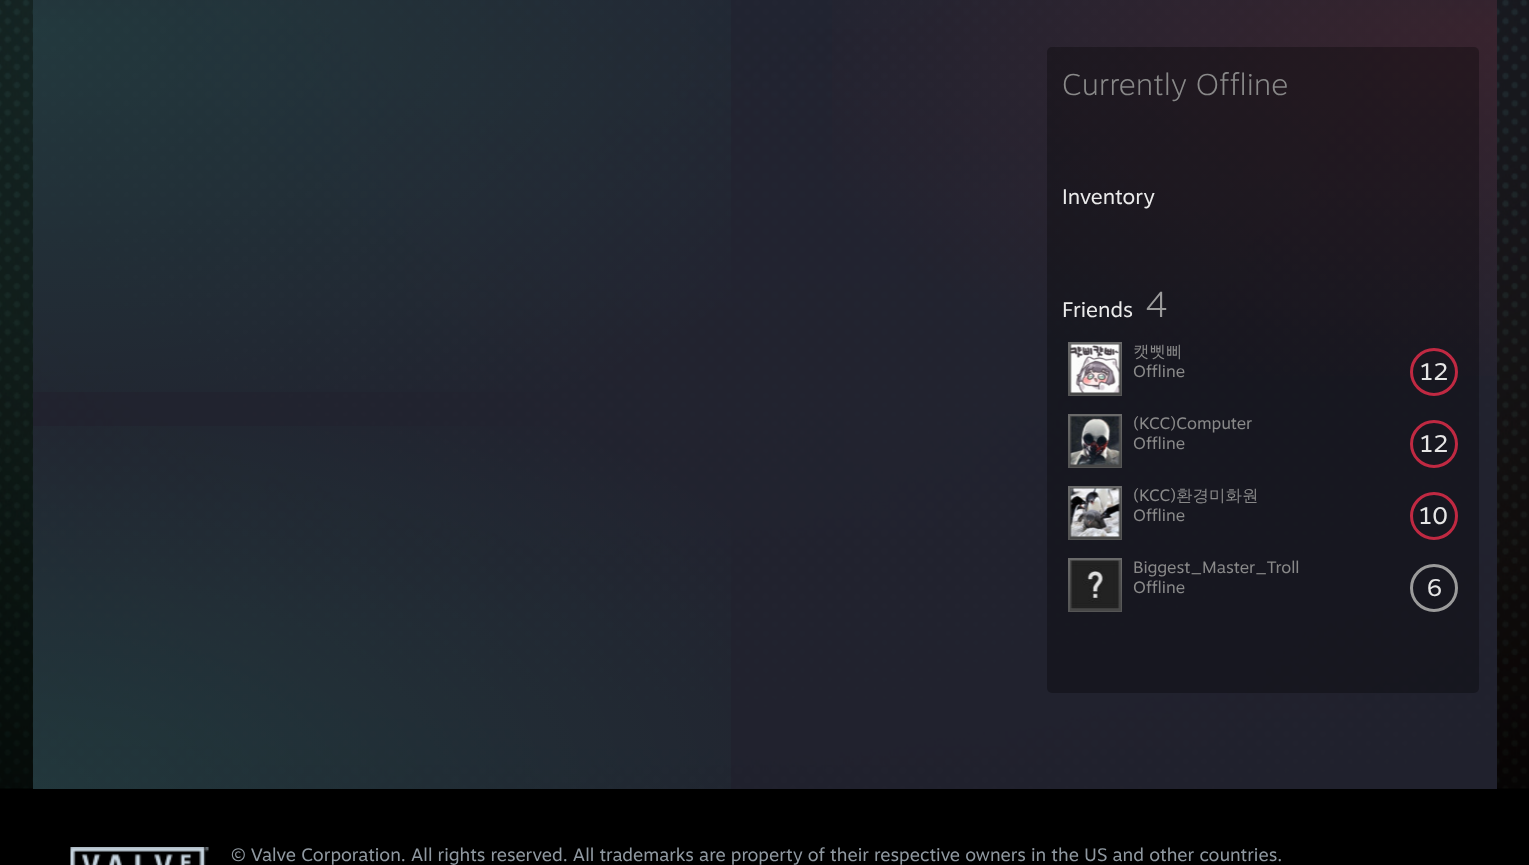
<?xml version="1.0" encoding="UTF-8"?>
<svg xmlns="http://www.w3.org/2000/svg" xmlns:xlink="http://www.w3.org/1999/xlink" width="1529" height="865">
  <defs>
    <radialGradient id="g1" gradientUnits="userSpaceOnUse" cx="0" cy="0" r="1" gradientTransform="matrix(2070 0 0 475 33 29)"><stop offset="0" stop-color="#32ffc1" stop-opacity="0.1" /><stop offset="0.43" stop-color="#32ffc1" stop-opacity="0" /></radialGradient>
    <radialGradient id="g2" gradientUnits="userSpaceOnUse" cx="0" cy="0" r="1" gradientTransform="matrix(1464 0 0 336 1497 29)"><stop offset="0" stop-color="#6d262c" stop-opacity="0.3" /><stop offset="0.51" stop-color="#6d262c" stop-opacity="0" /></radialGradient>
    <radialGradient id="g3" gradientUnits="userSpaceOnUse" cx="0" cy="0" r="1" gradientTransform="matrix(2070 0 0 1076 33 789)"><stop offset="0" stop-color="#32ffc1" stop-opacity="0.1" /><stop offset="0.43" stop-color="#32ffc1" stop-opacity="0" /></radialGradient>
    <radialGradient id="g4" gradientUnits="userSpaceOnUse" cx="0" cy="0" r="1" gradientTransform="matrix(2070 0 0 1076 33 29)"><stop offset="0" stop-color="#32ffc1" stop-opacity="0.1" /><stop offset="0.43" stop-color="#32ffc1" stop-opacity="0" /></radialGradient>
    <radialGradient id="g5" gradientUnits="userSpaceOnUse" cx="0" cy="0" r="1" gradientTransform="matrix(1464 0 0 761 1497 29)"><stop offset="0" stop-color="#6d262c" stop-opacity="0.3" /><stop offset="0.51" stop-color="#6d262c" stop-opacity="0" /></radialGradient>
    <linearGradient id="g6" gradientUnits="userSpaceOnUse" x1="1095" y1="342" x2="1095" y2="396"><stop offset="0.05" stop-color="#6a6a6a" /><stop offset="0.95" stop-color="#555555" /></linearGradient>
    <linearGradient id="g7" gradientUnits="userSpaceOnUse" x1="1095" y1="344" x2="1095" y2="395"><stop offset="0.05" stop-color="#515151" /><stop offset="0.95" stop-color="#474747" /></linearGradient>
    <linearGradient id="g8" gradientUnits="userSpaceOnUse" x1="1095" y1="414" x2="1095" y2="468"><stop offset="0.05" stop-color="#6a6a6a" /><stop offset="0.95" stop-color="#555555" /></linearGradient>
    <linearGradient id="g9" gradientUnits="userSpaceOnUse" x1="1095" y1="416" x2="1095" y2="467"><stop offset="0.05" stop-color="#515151" /><stop offset="0.95" stop-color="#474747" /></linearGradient>
    <linearGradient id="g10" gradientUnits="userSpaceOnUse" x1="1095" y1="486" x2="1095" y2="540"><stop offset="0.05" stop-color="#6a6a6a" /><stop offset="0.95" stop-color="#555555" /></linearGradient>
    <linearGradient id="g11" gradientUnits="userSpaceOnUse" x1="1095" y1="488" x2="1095" y2="539"><stop offset="0.05" stop-color="#515151" /><stop offset="0.95" stop-color="#474747" /></linearGradient>
    <linearGradient id="g12" gradientUnits="userSpaceOnUse" x1="1095" y1="558" x2="1095" y2="612"><stop offset="0.05" stop-color="#6a6a6a" /><stop offset="0.95" stop-color="#555555" /></linearGradient>
    <linearGradient id="g13" gradientUnits="userSpaceOnUse" x1="1095" y1="560" x2="1095" y2="611"><stop offset="0.05" stop-color="#515151" /><stop offset="0.95" stop-color="#474747" /></linearGradient>
  </defs>
  <rect width="100%" height="100%" fill="#000000" />
  <rect x="33" y="788" width="1464" height="1" fill="#20212d" />
  <image x="0" y="0" width="1529" height="789" xlink:href="image1.png" />
  <rect x="33" width="1464" height="29" fill="#222330" fill-opacity="0.93" />
  <rect x="33" width="698" height="29" fill="url(#g1)" />
  <rect x="832" width="665" height="29" fill="url(#g2)" />
  <rect x="33" y="426" width="698" height="363" fill="url(#g3)" />
  <rect x="33" y="29" width="698" height="363" fill="url(#g4)" />
  <rect x="832" y="29" width="665" height="347" fill="url(#g5)" />
  <rect x="1047" y="47" width="432" height="646" rx="5" fill="#000000" fill-opacity="0.3" />
  <rect x="1068" y="342" width="54" height="54" fill="url(#g6)" />
  <rect x="1070" y="344" width="51" height="51" fill="url(#g7)" />
  <image x="1070" y="344" width="50" height="49" xlink:href="image2.png" />
  <circle cx="1434" cy="372" r="22.5" fill="none" stroke="#c02942" stroke-width="3" />
  <rect x="1068" y="414" width="54" height="54" fill="url(#g8)" />
  <rect x="1070" y="416" width="51" height="51" fill="url(#g9)" />
  <image x="1070" y="416" width="50" height="49" xlink:href="image3.png" />
  <circle cx="1434" cy="444" r="22.5" fill="none" stroke="#c02942" stroke-width="3" />
  <rect x="1068" y="486" width="54" height="54" fill="url(#g10)" />
  <rect x="1070" y="488" width="51" height="51" fill="url(#g11)" />
  <image x="1070" y="488" width="50" height="49" xlink:href="image4.png" />
  <circle cx="1434" cy="516" r="22.5" fill="none" stroke="#c02942" stroke-width="3" />
  <rect x="1068" y="558" width="54" height="54" fill="url(#g12)" />
  <rect x="1070" y="560" width="51" height="51" fill="url(#g13)" />
  <image x="1070" y="560" width="50" height="49" xlink:href="image5.png" />
  <circle cx="1434" cy="588" r="22.5" fill="none" stroke="#9b9b9b" stroke-width="3" />
  <image x="70" y="847" width="139" height="18" xlink:href="image6.png" />
  <text x="1062" y="95" style="font-family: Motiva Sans; font-size: 30px; font-weight: 100; fill: #898989">Currently Offline</text>
  <text x="1062" y="204" style="font-family: Motiva Sans; font-size: 21px; fill: #ebebeb">Inventory</text>
  <text x="1062" y="317" style="font-family: Motiva Sans; font-size: 21px; fill: #ebebeb">Friends</text>
  <text x="1145" y="317" style="font-family: Motiva Sans; font-size: 36px; font-weight: 100; fill: #9b9b9b">4</text>
  <text x="1133" y="357" style="font-family: WenQuanYi Zen Hei; font-size: 16.5px; font-weight: 500; fill: #898989">캣삣삐</text>
  <text x="1133" y="377" style="font-family: Motiva Sans; font-size: 16.5px; fill: #898989">Offline</text>
  <text x="1420" y="380" style="font-family: Motiva Sans; font-size: 24px; fill: #e5e5e5">12</text>
  <text x="1133" y="429" style="font-family: Motiva Sans; font-size: 16.5px; fill: #898989">(KCC)Computer</text>
  <text x="1133" y="449" style="font-family: Motiva Sans; font-size: 16.5px; fill: #898989">Offline</text>
  <text x="1420" y="452" style="font-family: Motiva Sans; font-size: 24px; fill: #e5e5e5">12</text>
  <text x="1133" y="501" style="font-family: Motiva Sans; font-size: 16.5px; fill: #898989">(KCC)</text>
  <text x="1176" y="501" style="font-family: WenQuanYi Zen Hei; font-size: 16.5px; font-weight: 500; fill: #898989">환경미화원</text>
  <text x="1133" y="521" style="font-family: Motiva Sans; font-size: 16.5px; fill: #898989">Offline</text>
  <text x="1419" y="524" style="font-family: Motiva Sans; font-size: 24px; fill: #e5e5e5">10</text>
  <text x="1133" y="573" style="font-family: Motiva Sans; font-size: 16.5px; fill: #898989">Biggest_Master_Troll</text>
  <text x="1133" y="593" style="font-family: Motiva Sans; font-size: 16.5px; fill: #898989">Offline</text>
  <text x="1427" y="596" style="font-family: Motiva Sans; font-size: 24px; fill: #e5e5e5">6</text>
  <text x="231" y="861" style="font-family: Motiva Sans; font-size: 18px; fill: #8f98a0">© Valve Corporation. All rights reserved. All trademarks are property of their respective owners in the US and other countries.</text>
</svg>
